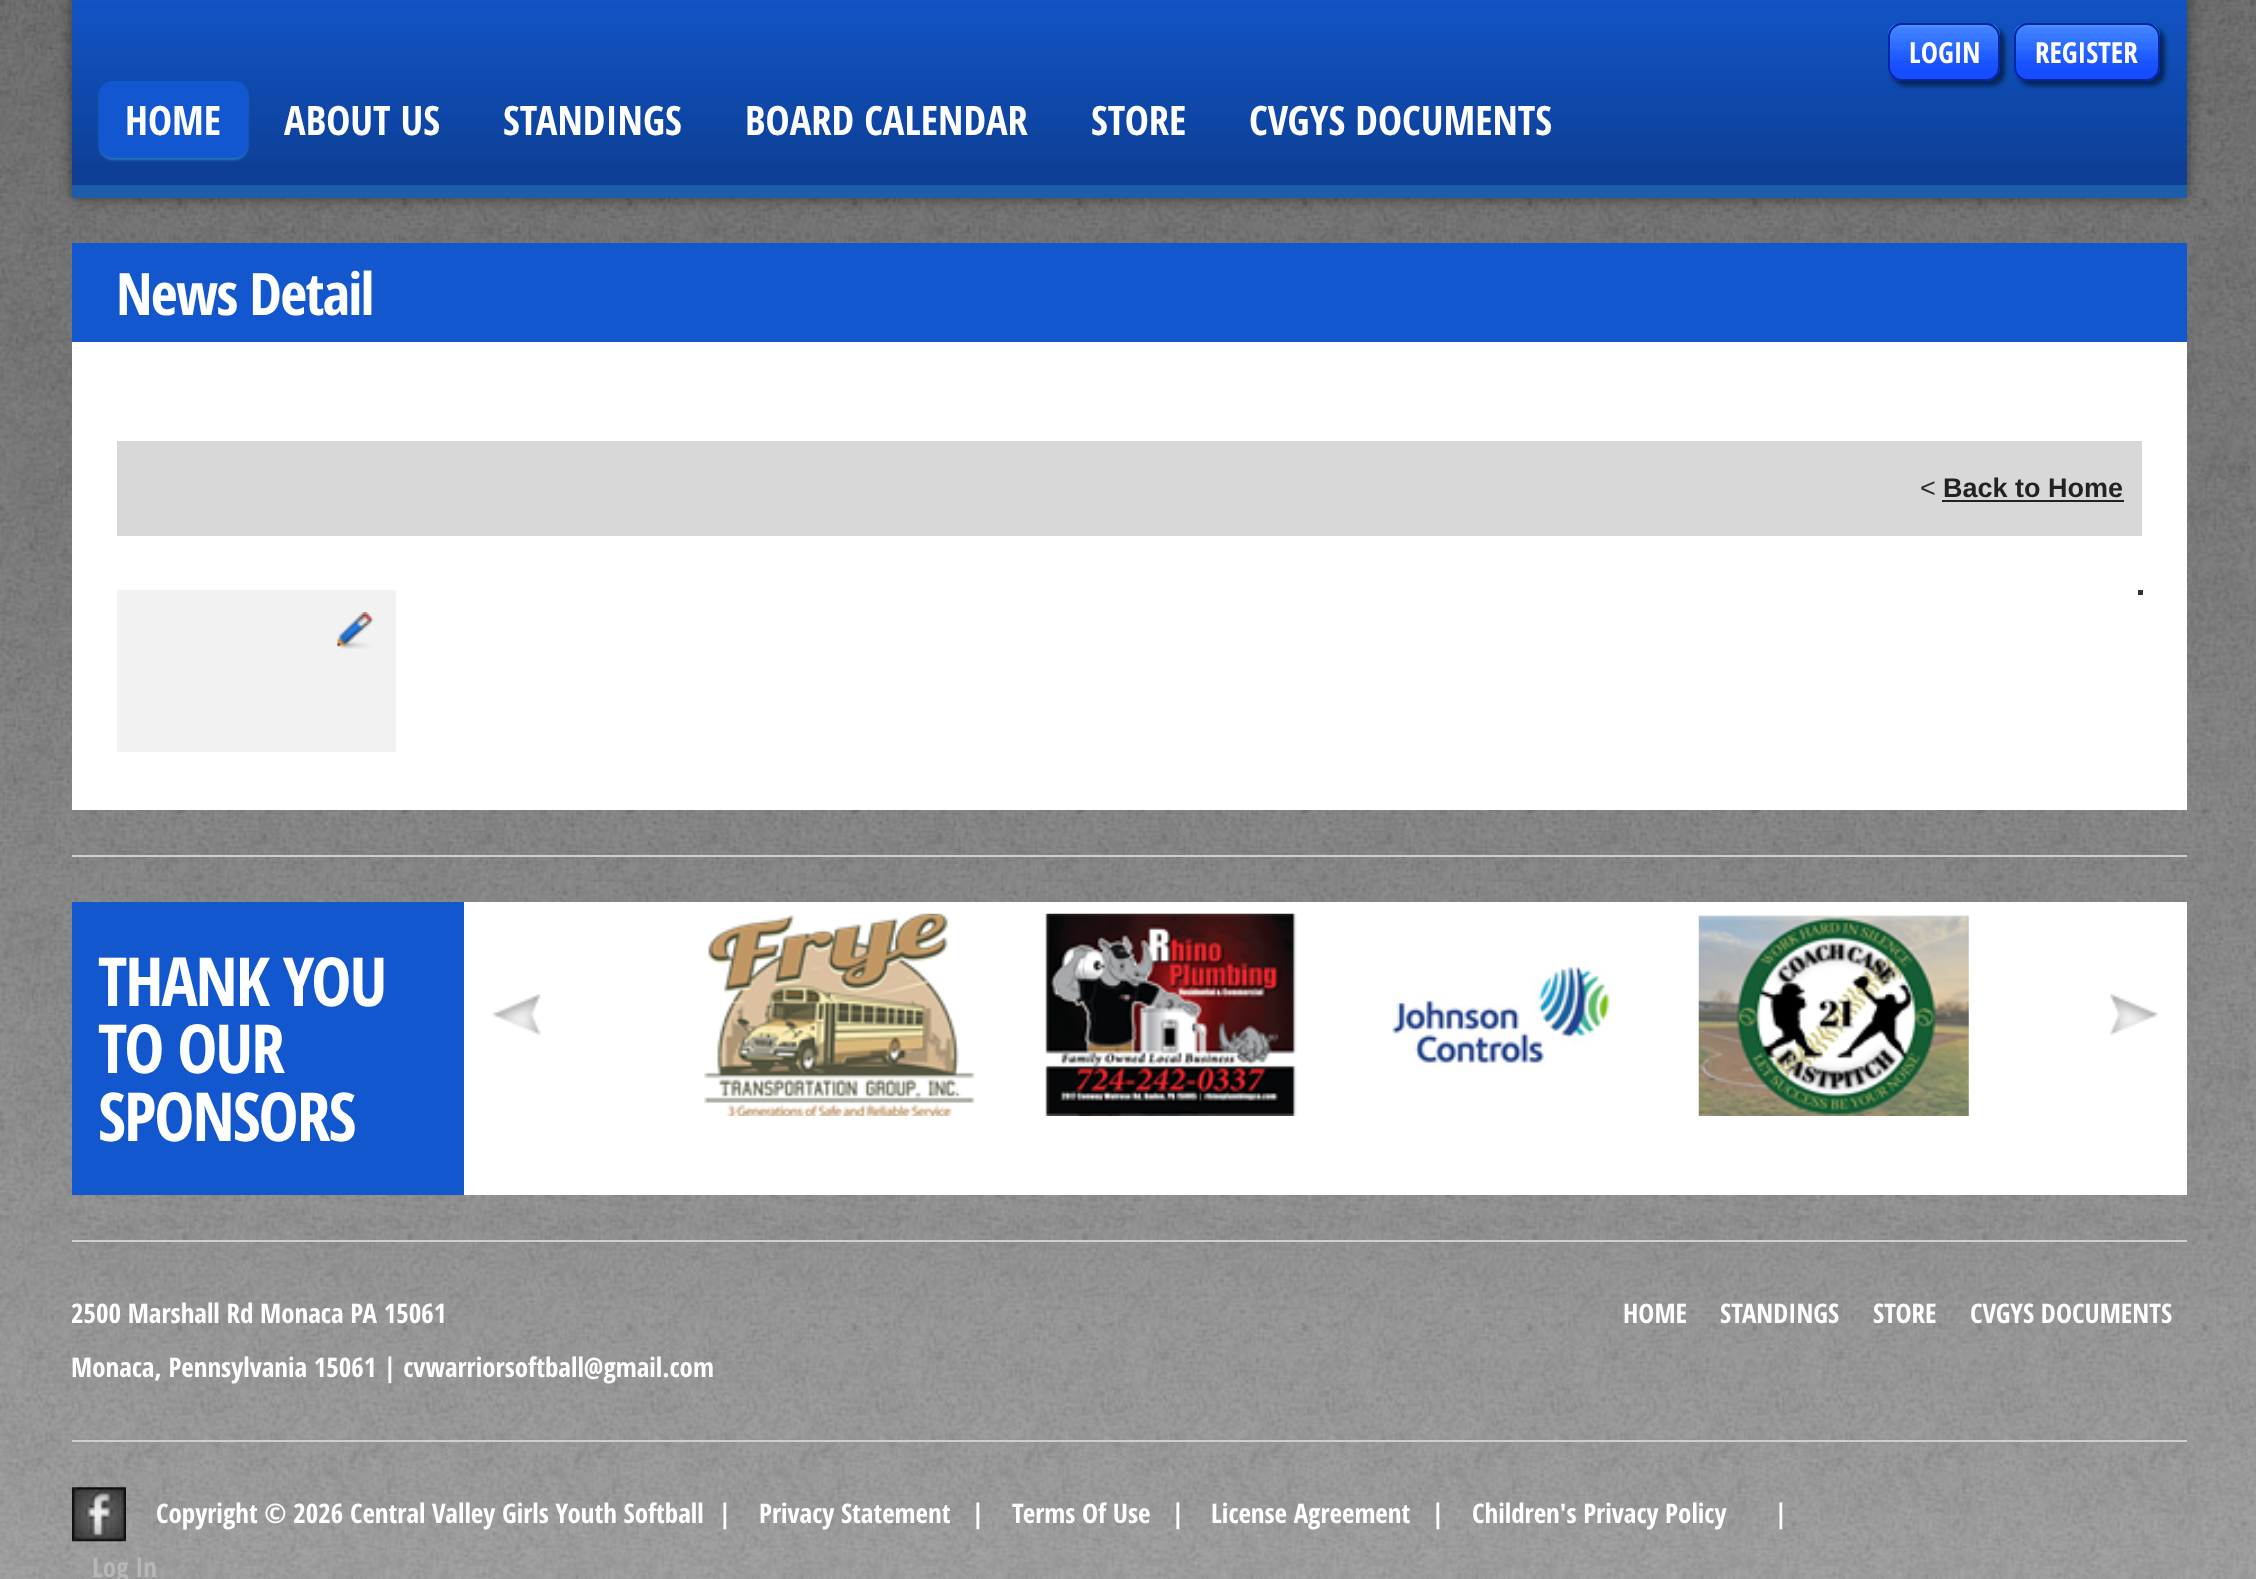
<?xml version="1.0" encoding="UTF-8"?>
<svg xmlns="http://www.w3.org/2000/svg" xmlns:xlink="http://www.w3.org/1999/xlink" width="2256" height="1579">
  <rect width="100%" height="100%" fill="#ffffff" />
  <image x="0" y="0" width="2256" height="1579" xlink:href="image1.png" />
  <rect x="72" y="-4" width="2115" height="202" fill="#000000" fill-opacity="0.5" filter="blur(7px)" />
  <rect x="72" y="162" width="2115" height="23" fill="#0f3e96" />
  <image x="72" y="0" width="2115" height="162" xlink:href="image2.png" />
  <rect x="72" y="185" width="2115" height="13" fill="#1d5da9" />
  <rect x="1892" y="27" width="113" height="59" rx="14" fill="#000000" fill-opacity="0.5" filter="blur(2px)" />
  <rect x="1888" y="23" width="112" height="58" rx="14" fill="#164dff" />
  <image x="1887" y="24" width="114" height="46" xlink:href="image3.png" />
  <rect x="1889" y="24" width="110" height="56" rx="13" fill="none" stroke="#0027a6" stroke-width="2" />
  <rect x="2018" y="27" width="147" height="59" rx="14" fill="#000000" fill-opacity="0.5" filter="blur(2px)" />
  <rect x="2014" y="23" width="146" height="58" rx="14" fill="#164dff" />
  <image x="2013" y="24" width="147" height="46" xlink:href="image4.png" />
  <rect x="2015" y="24" width="144" height="56" rx="13" fill="none" stroke="#0027a6" stroke-width="2" />
  <rect x="99" y="83" width="149" height="77" rx="14" fill="#2875be" filter="blur(1px)" />
  <rect x="99" y="81" width="149" height="77" rx="14" fill="#1257cf" />
  <rect x="72" y="342" width="2115" height="468" fill="#ffffff" />
  <rect x="72" y="243" width="2115" height="99" fill="#1257cd" />
  <rect x="117" y="441" width="2025" height="95" fill="#d8d8d8" />
  <rect x="1942" y="500" width="182" height="2" fill="#222222" />
  <rect x="117" y="590" width="279" height="162" fill="#f2f2f2" />
  <image x="336" y="612" width="38" height="37" xlink:href="image5.png" />
  <rect x="2138" y="590" width="5" height="5" fill="#303030" />
  <rect x="72" y="855" width="2115" height="2" fill="#cfcfcf" />
  <rect x="464" y="902" width="1723" height="293" fill="#ffffff" />
  <rect x="72" y="902" width="392" height="293" fill="#1257cd" />
  <image x="492" y="994" width="49" height="42" xlink:href="image6.png" />
  <image x="704" y="913" width="271" height="203" xlink:href="image7.png" />
  <image x="1045" y="913" width="252" height="203" xlink:href="image8.png" />
  <image x="1392" y="967" width="218" height="101" xlink:href="image9.png" />
  <image x="1698" y="915" width="271" height="201" xlink:href="image10.png" />
  <image x="2110" y="994" width="49" height="42" xlink:href="image11.png" />
  <rect x="72" y="1240" width="2115" height="2" fill="#cfcfcf" />
  <rect x="72" y="1440" width="2115" height="2" fill="#cfcfcf" />
  <image x="72" y="1487" width="54" height="55" xlink:href="image12.png" />
  <text x="1909" y="63" style="font-family: Open Sans Condensed; font-size: 29px; font-weight: bold; fill: #ffffff">LOGIN</text>
  <text x="2035" y="63" style="font-family: Open Sans Condensed; font-size: 29px; font-weight: bold; fill: #ffffff">REGISTER</text>
  <text x="125" y="135" style="font-family: Open Sans Condensed; font-size: 40.5px; font-weight: bold; fill: #ffffff">HOME</text>
  <text x="284" y="135" style="font-family: Open Sans Condensed; font-size: 40.5px; font-weight: bold; fill: #ffffff">ABOUT US</text>
  <text x="503" y="135" style="font-family: Open Sans Condensed; font-size: 40.5px; font-weight: bold; fill: #ffffff">STANDINGS</text>
  <text x="745" y="135" style="font-family: Open Sans Condensed; font-size: 40.5px; font-weight: bold; fill: #ffffff">BOARD CALENDAR</text>
  <text x="1091" y="135" style="font-family: Open Sans Condensed; font-size: 40.5px; font-weight: bold; fill: #ffffff">STORE</text>
  <text x="1249" y="135" style="font-family: Open Sans Condensed; font-size: 40.5px; font-weight: bold; fill: #ffffff">CVGYS DOCUMENTS</text>
  <text x="116" y="315" style="font-family: Open Sans Condensed; font-size: 58.5px; font-weight: bold; letter-spacing: -1.75px; fill: #ffffff">News Detail</text>
  <text x="1920" y="497" style="font-family: Liberation Sans; font-size: 27px; fill: #2e2e2e">&lt;</text>
  <text x="1943" y="497" style="font-family: Liberation Sans; font-size: 27px; font-weight: bold; fill: #222222">Back to Home</text>
  <text x="98" y="1006" style="font-family: Open Sans Condensed; font-size: 67.5px; font-weight: bold; letter-spacing: -2px; fill: #ffffff">THANK YOU</text>
  <text x="98" y="1073" style="font-family: Open Sans Condensed; font-size: 67.5px; font-weight: bold; letter-spacing: -2px; fill: #ffffff">TO OUR</text>
  <text x="98" y="1141" style="font-family: Open Sans Condensed; font-size: 67.5px; font-weight: bold; letter-spacing: -2px; fill: #ffffff">SPONSORS</text>
  <text x="71" y="1323" style="font-family: Open Sans Condensed; font-size: 27px; font-weight: bold; fill: #ffffff">2500 Marshall Rd Monaca PA 15061</text>
  <text x="71" y="1377" style="font-family: Open Sans Condensed; font-size: 27px; font-weight: bold; fill: #ffffff">Monaca, Pennsylvania 15061 | cvwarriorsoftball@gmail.com</text>
  <text x="1623" y="1323" style="font-family: Open Sans Condensed; font-size: 27px; font-weight: bold; fill: #ffffff">HOME</text>
  <text x="1720" y="1323" style="font-family: Open Sans Condensed; font-size: 27px; font-weight: bold; fill: #ffffff">STANDINGS</text>
  <text x="1873" y="1323" style="font-family: Open Sans Condensed; font-size: 27px; font-weight: bold; fill: #ffffff">STORE</text>
  <text x="1970" y="1323" style="font-family: Open Sans Condensed; font-size: 27px; font-weight: bold; fill: #ffffff">CVGYS DOCUMENTS</text>
  <text x="156" y="1523" style="font-family: Open Sans Condensed; font-size: 27px; font-weight: bold; fill: #ffffff">Copyright © 2026 Central Valley Girls Youth Softball</text>
  <text x="718" y="1523" style="font-family: Open Sans Condensed; font-size: 27px; font-weight: bold; fill: #ffffff">|</text>
  <text x="759" y="1523" style="font-family: Open Sans Condensed; font-size: 27px; font-weight: bold; fill: #ffffff">Privacy Statement</text>
  <text x="971" y="1523" style="font-family: Open Sans Condensed; font-size: 27px; font-weight: bold; fill: #ffffff">|</text>
  <text x="1012" y="1523" style="font-family: Open Sans Condensed; font-size: 27px; font-weight: bold; fill: #ffffff">Terms Of Use</text>
  <text x="1171" y="1523" style="font-family: Open Sans Condensed; font-size: 27px; font-weight: bold; fill: #ffffff">|</text>
  <text x="1211" y="1523" style="font-family: Open Sans Condensed; font-size: 27px; font-weight: bold; fill: #ffffff">License Agreement</text>
  <text x="1431" y="1523" style="font-family: Open Sans Condensed; font-size: 27px; font-weight: bold; fill: #ffffff">|</text>
  <text x="1472" y="1523" style="font-family: Open Sans Condensed; font-size: 27px; font-weight: bold; fill: #ffffff">Children's Privacy Policy</text>
  <text x="1774" y="1523" style="font-family: Open Sans Condensed; font-size: 27px; font-weight: bold; fill: #ffffff">|</text>
  <text x="92" y="1577" style="font-family: Open Sans Condensed; font-size: 27px; font-weight: bold; fill: #b7b7b7">Log In</text>
</svg>
